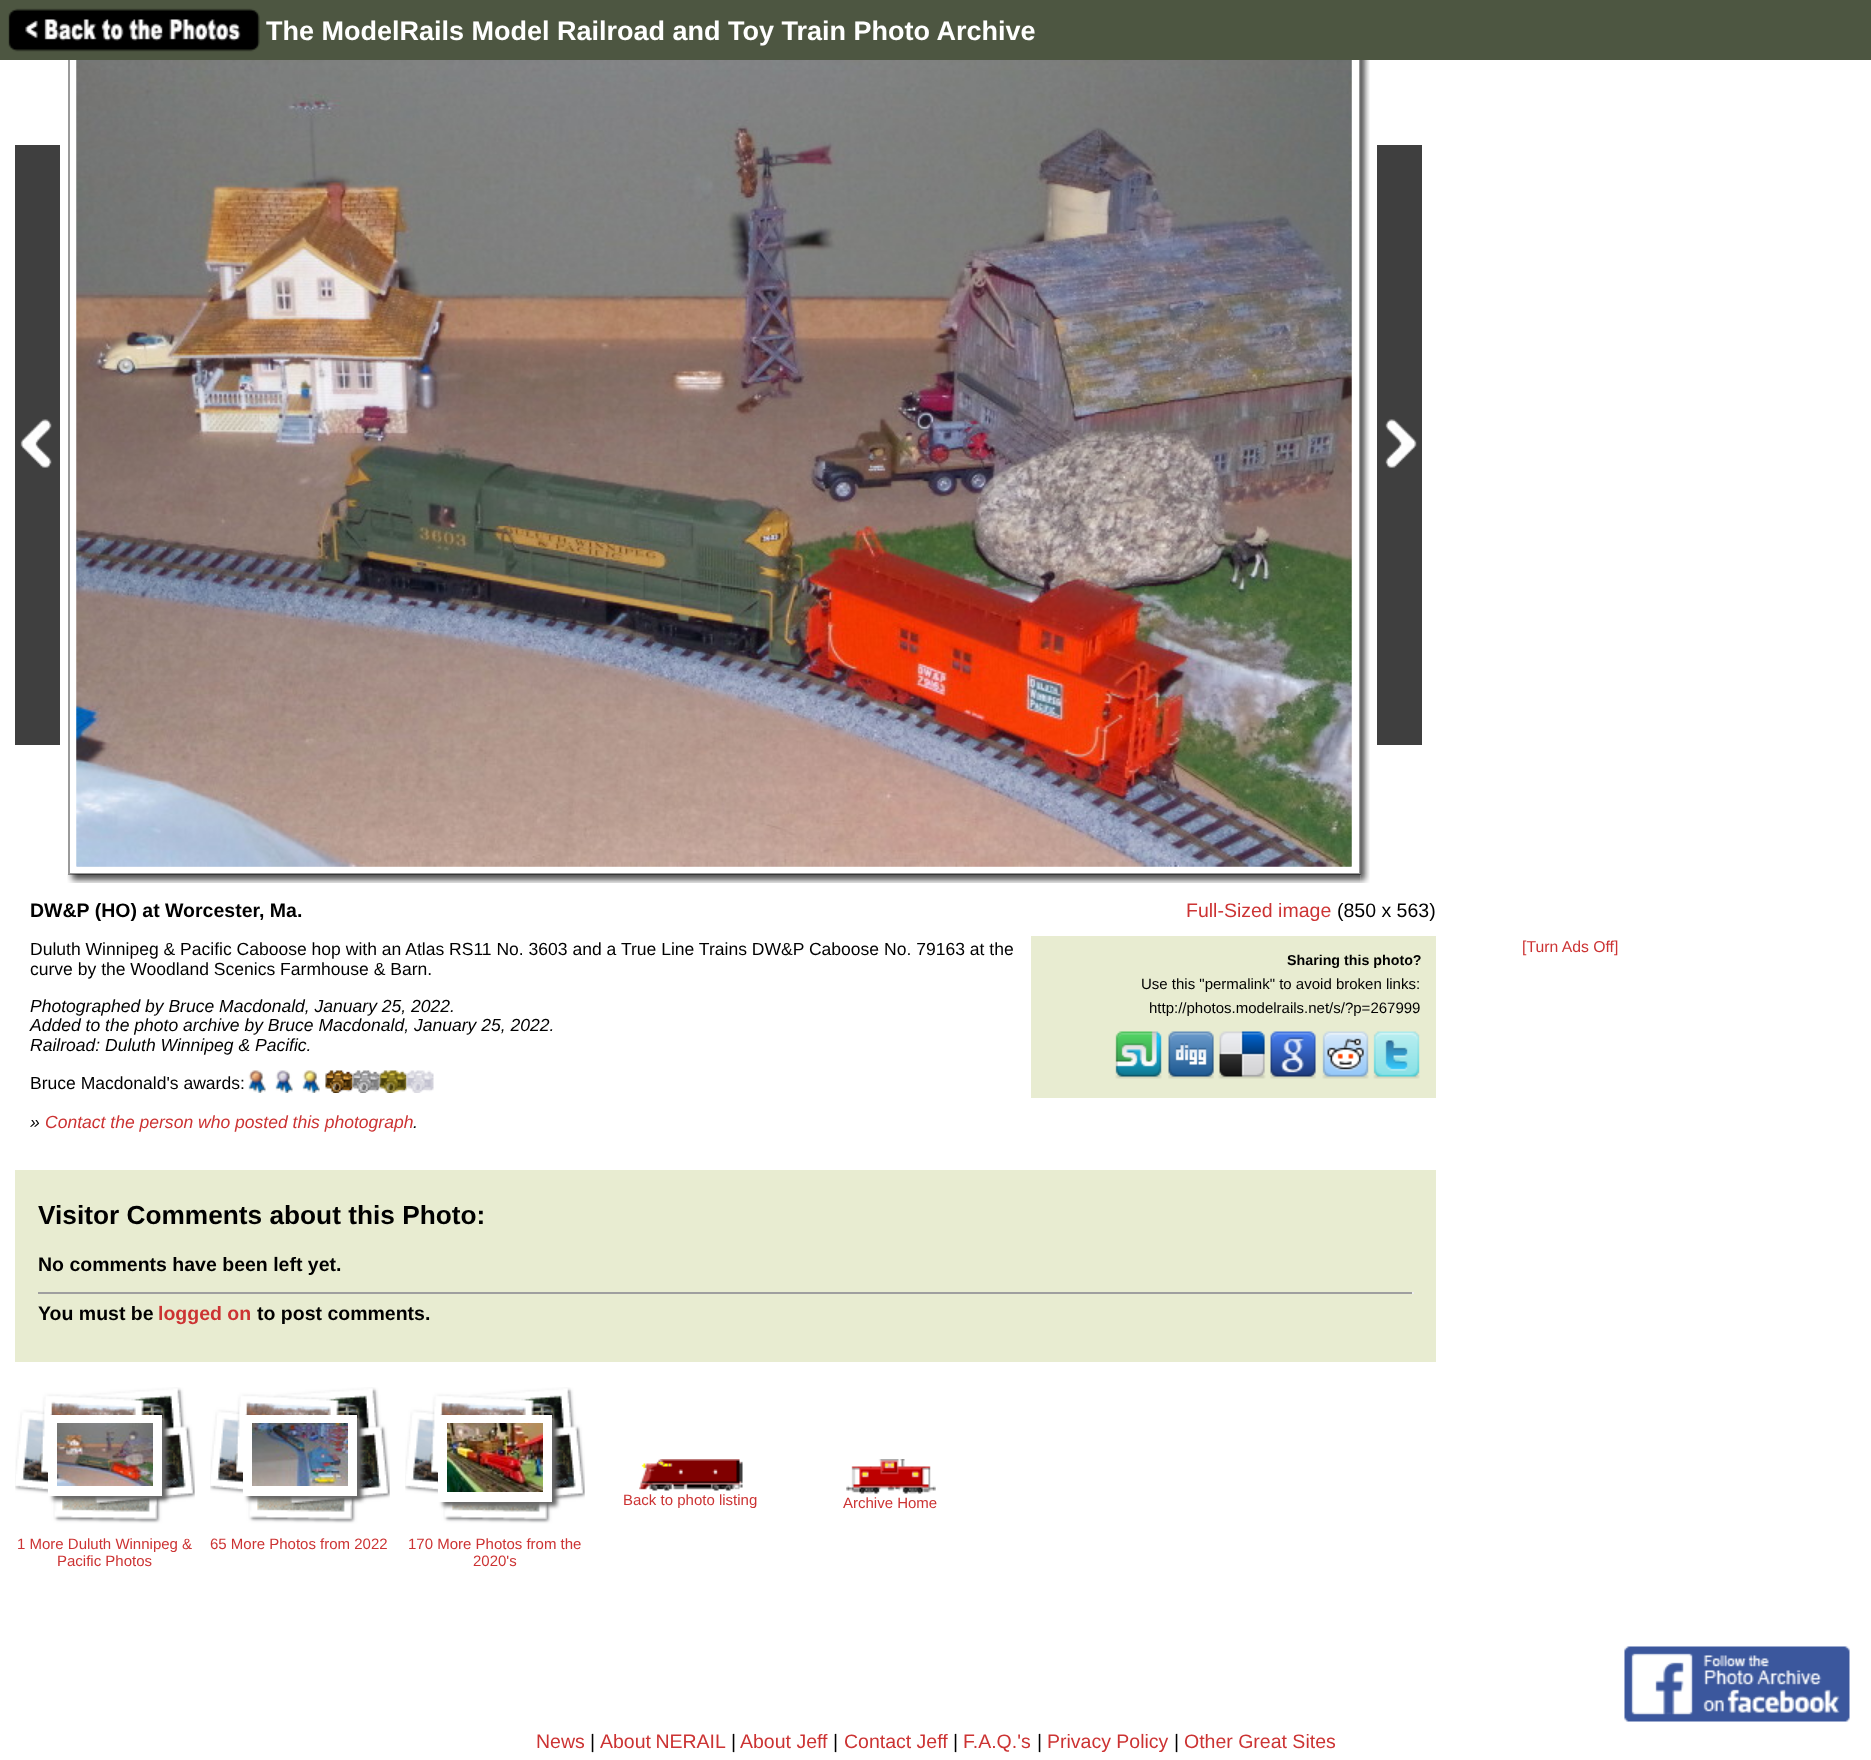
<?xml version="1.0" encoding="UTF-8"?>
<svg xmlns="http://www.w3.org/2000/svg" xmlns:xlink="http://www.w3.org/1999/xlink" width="1871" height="1760">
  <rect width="100%" height="100%" fill="#ffffff" />
  <rect x="69" y="16" width="1291" height="858" fill="none" stroke="#9a9a9a" stroke-width="2" />
  <rect width="1871" height="60" fill="#4d5641" />
  <image x="8" y="8" width="252" height="44" xlink:href="image1.png" />
  <image x="15" y="145" width="45" height="600" xlink:href="image2.png" />
  <rect x="77" y="60" width="1275" height="807" fill="#eeeeee" />
  <image x="76" y="60" width="1276" height="807" xlink:href="image3.png" />
  <image x="76" y="60" width="1276" height="807" xlink:href="image4.png" />
  <image x="1360" y="60" width="10" height="814" xlink:href="image5.png" />
  <image x="1377" y="145" width="45" height="600" xlink:href="image6.png" />
  <image x="67" y="874" width="1294" height="9" xlink:href="image7.png" />
  <image x="1360" y="874" width="10" height="9" xlink:href="image8.png" />
  <image x="248" y="1070" width="18" height="23" xlink:href="image9.png" />
  <image x="275" y="1070" width="18" height="23" xlink:href="image10.png" />
  <image x="302" y="1070" width="18" height="23" xlink:href="image11.png" />
  <image x="325" y="1070" width="28" height="23" xlink:href="image12.png" />
  <image x="352" y="1070" width="28" height="23" xlink:href="image13.png" />
  <image x="379" y="1070" width="28" height="23" xlink:href="image14.png" />
  <image x="406" y="1070" width="28" height="23" xlink:href="image15.png" />
  <rect x="1031" y="936" width="405" height="162" fill="#e8ecd1" />
  <image x="1115" y="1031" width="47" height="48" xlink:href="image16.png" />
  <image x="1168" y="1031" width="46" height="48" xlink:href="image17.png" />
  <image x="1218" y="1031" width="48" height="48" xlink:href="image18.png" />
  <image x="1270" y="1031" width="46" height="48" xlink:href="image19.png" />
  <image x="1322" y="1031" width="47" height="48" xlink:href="image20.png" />
  <image x="1373" y="1031" width="47" height="48" xlink:href="image21.png" />
  <rect x="15" y="1170" width="1421" height="192" fill="#e8ecd1" />
  <rect x="38" y="1292" width="1375" height="2" fill="#9f9f9f" />
  <rect x="1412" y="1292" width="2" height="2" fill="#eeeeee" />
  <image x="639" y="1459" width="104" height="32" xlink:href="image22.png" />
  <image x="846" y="1459" width="90" height="35" xlink:href="image23.png" />
  <image x="15" y="1387" width="180" height="137" xlink:href="image24.png" />
  <rect x="53" y="1419" width="114" height="81" fill="#666666" filter="blur(2px)" />
  <rect x="48" y="1415" width="114" height="81" fill="#ffffff" />
  <image x="57" y="1423" width="96" height="63" xlink:href="image25.png" />
  <image x="210" y="1387" width="180" height="137" xlink:href="image24.png" />
  <rect x="248" y="1419" width="114" height="81" fill="#666666" filter="blur(2px)" />
  <rect x="243" y="1415" width="114" height="81" fill="#ffffff" />
  <image x="252" y="1423" width="96" height="63" xlink:href="image26.png" />
  <image x="405" y="1387" width="180" height="137" xlink:href="image27.png" />
  <rect x="443" y="1419" width="114" height="87" fill="#666666" filter="blur(2px)" />
  <rect x="438" y="1415" width="114" height="87" fill="#ffffff" />
  <image x="447" y="1423" width="96" height="69" xlink:href="image28.png" />
  <image x="1624" y="1646" width="226" height="76" xlink:href="image29.png" />
  <text x="266" y="40" style="font-family: Liberation Sans; font-size: 27px; font-weight: bold; fill: #ffffff">The ModelRails Model Railroad and Toy Train Photo Archive</text>
  <text x="30" y="917" style="font-family: Liberation Sans; font-size: 19.5px; font-weight: bold; fill: #000000">DW&amp;P (HO) at Worcester, Ma.</text>
  <text x="30" y="955" style="font-family: Liberation Sans; font-size: 17.55px; fill: #000000">Duluth Winnipeg &amp; Pacific Caboose hop with an Atlas RS11 No. 3603 and a True Line Trains DW&amp;P Caboose No. 79163 at the</text>
  <text x="30" y="975" style="font-family: Liberation Sans; font-size: 17.55px; fill: #000000">curve by the Woodland Scenics Farmhouse &amp; Barn.</text>
  <text x="30" y="1012" style="font-family: Liberation Sans; font-size: 17.55px; font-style: italic; fill: #000000">Photographed by Bruce Macdonald, January 25, 2022.</text>
  <text x="30" y="1031" style="font-family: Liberation Sans; font-size: 17.55px; font-style: italic; fill: #000000">Added to the photo archive by Bruce Macdonald, January 25, 2022.</text>
  <text x="30" y="1051" style="font-family: Liberation Sans; font-size: 17.55px; font-style: italic; fill: #000000">Railroad: Duluth Winnipeg &amp; Pacific.</text>
  <text x="30" y="1089" style="font-family: Liberation Sans; font-size: 17.55px; fill: #000000">Bruce Macdonald's awards:</text>
  <text x="30" y="1128" style="font-family: Liberation Sans; font-size: 17.55px; font-style: italic; fill: #000000">»</text>
  <text x="45" y="1128" style="font-family: Liberation Sans; font-size: 17.55px; font-style: italic; fill: #cc3333">Contact the person who posted this photograph</text>
  <text x="413" y="1128" style="font-family: Liberation Sans; font-size: 17.55px; font-style: italic; fill: #000000">.</text>
  <text x="1186" y="917" style="font-family: Liberation Sans; font-size: 19.5px; fill: #cc3333">Full-Sized image</text>
  <text x="1337" y="917" style="font-family: Liberation Sans; font-size: 19.5px; fill: #000000">(850 x 563)</text>
  <text x="1287" y="965" style="font-family: Liberation Sans; font-size: 14.25px; font-weight: bold; fill: #000000">Sharing this photo?</text>
  <text x="1141" y="989" style="font-family: Liberation Sans; font-size: 15px; fill: #000000">Use this "permalink" to avoid broken links:</text>
  <text x="1149" y="1013" style="font-family: Liberation Sans; font-size: 15px; fill: #000000">http://photos.modelrails.net/s/?p=267999</text>
  <text x="1522" y="952" style="font-family: Liberation Sans; font-size: 15.75px; fill: #cc3333">[Turn Ads Off]</text>
  <text x="38" y="1224" style="font-family: Liberation Sans; font-size: 26.25px; font-weight: bold; fill: #000000">Visitor Comments about this Photo:</text>
  <text x="38" y="1271" style="font-family: Liberation Sans; font-size: 19.5px; font-weight: bold; fill: #000000">No comments have been left yet.</text>
  <text x="38" y="1320" style="font-family: Liberation Sans; font-size: 19.5px; font-weight: bold; fill: #000000">You must be</text>
  <text x="158" y="1320" style="font-family: Liberation Sans; font-size: 19.5px; font-weight: bold; fill: #cc3333">logged on</text>
  <text x="257" y="1320" style="font-family: Liberation Sans; font-size: 19.5px; font-weight: bold; fill: #000000">to post comments.</text>
  <text x="623" y="1505" style="font-family: Liberation Sans; font-size: 15px; fill: #cc3333">Back to photo listing</text>
  <text x="843" y="1508" style="font-family: Liberation Sans; font-size: 15px; fill: #cc3333">Archive Home</text>
  <text x="17" y="1549" style="font-family: Liberation Sans; font-size: 15px; fill: #cc3333">1 More Duluth Winnipeg &amp;</text>
  <text x="57" y="1566" style="font-family: Liberation Sans; font-size: 15px; fill: #cc3333">Pacific Photos</text>
  <text x="210" y="1549" style="font-family: Liberation Sans; font-size: 15px; fill: #cc3333">65 More Photos from 2022</text>
  <text x="408" y="1549" style="font-family: Liberation Sans; font-size: 15px; fill: #cc3333">170 More Photos from the</text>
  <text x="473" y="1566" style="font-family: Liberation Sans; font-size: 15px; fill: #cc3333">2020's</text>
  <text x="536" y="1748" style="font-family: Liberation Sans; font-size: 19.5px; fill: #cc3333">News</text>
  <text x="590" y="1748" style="font-family: Liberation Sans; font-size: 19.5px; fill: #000000">|</text>
  <text x="600" y="1748" word-spacing="-1" style="font-family: Liberation Sans; font-size: 19.5px; fill: #cc3333">About NERAIL</text>
  <text x="731" y="1748" style="font-family: Liberation Sans; font-size: 19.5px; fill: #000000">|</text>
  <text x="740" y="1748" style="font-family: Liberation Sans; font-size: 19.5px; fill: #cc3333">About Jeff</text>
  <text x="833" y="1748" style="font-family: Liberation Sans; font-size: 19.5px; fill: #000000">|</text>
  <text x="844" y="1748" style="font-family: Liberation Sans; font-size: 19.5px; fill: #cc3333">Contact Jeff</text>
  <text x="953" y="1748" style="font-family: Liberation Sans; font-size: 19.5px; fill: #000000">|</text>
  <text x="963" y="1748" style="font-family: Liberation Sans; font-size: 19.5px; fill: #cc3333">F.A.Q.'s</text>
  <text x="1037" y="1748" style="font-family: Liberation Sans; font-size: 19.5px; fill: #000000">|</text>
  <text x="1047" y="1748" style="font-family: Liberation Sans; font-size: 19.5px; fill: #cc3333">Privacy Policy</text>
  <text x="1174" y="1748" style="font-family: Liberation Sans; font-size: 19.5px; fill: #000000">|</text>
  <text x="1184" y="1748" style="font-family: Liberation Sans; font-size: 19.5px; fill: #cc3333">Other Great Sites</text>
</svg>
